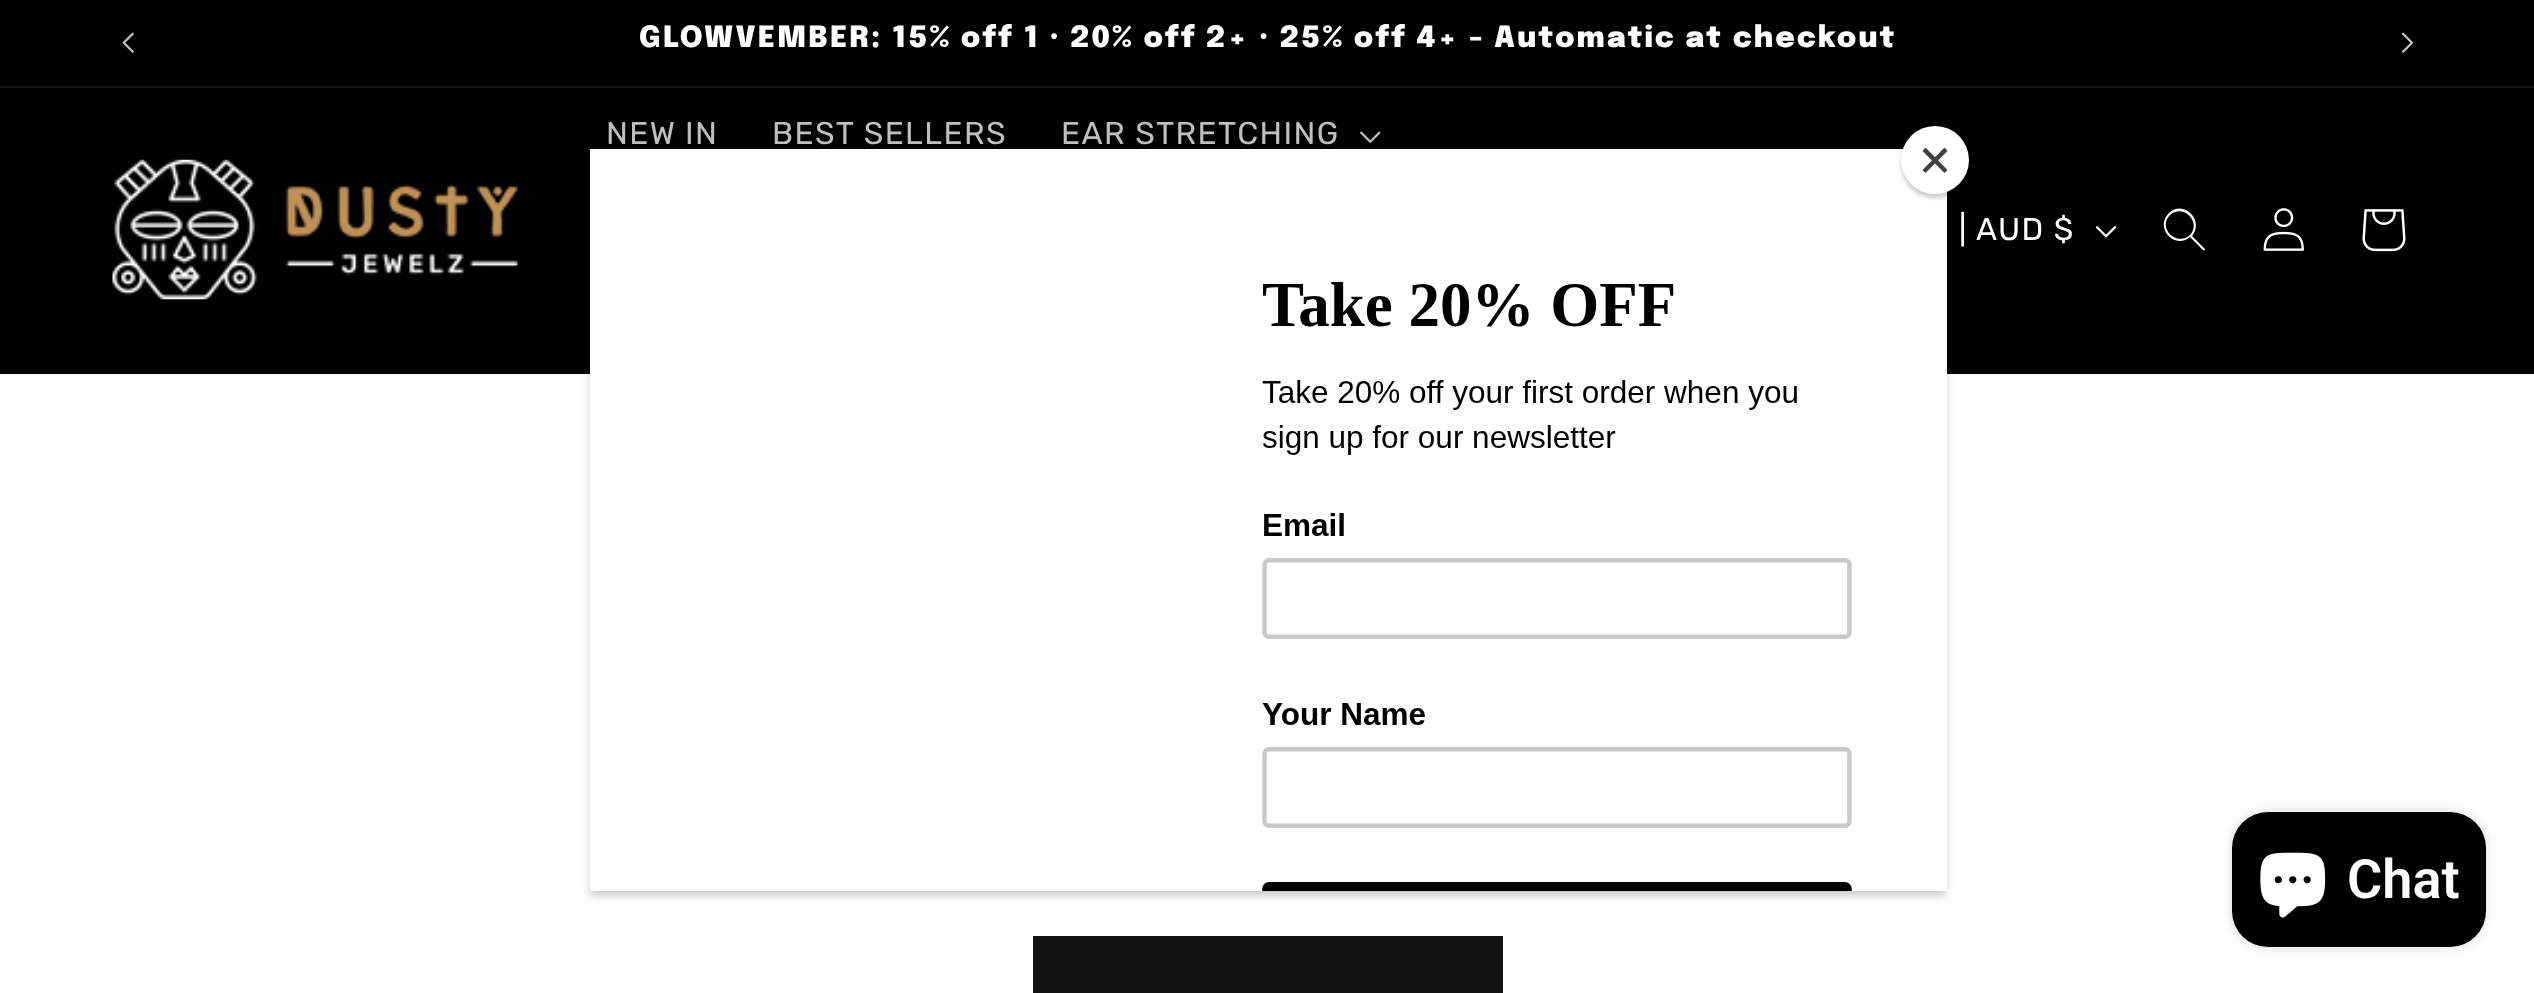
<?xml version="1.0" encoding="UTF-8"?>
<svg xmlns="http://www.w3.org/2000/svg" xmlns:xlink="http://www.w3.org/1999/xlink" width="2534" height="993">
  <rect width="100%" height="100%" fill="#ffffff" />
  <rect width="2534" height="86" fill="#000000" />
  <rect y="86" width="2534" height="2" fill="#141414" />
  <image x="122" y="32" width="12" height="21" xlink:href="image1.png" />
  <image x="2401" y="32" width="13" height="21" xlink:href="image2.png" />
  <rect y="88" width="2534" height="286" fill="#000000" />
  <image x="1360" y="131" width="21" height="12" xlink:href="image3.png" />
  <image x="112" y="159" width="406" height="141" xlink:href="image4.png" />
  <image x="2095" y="226" width="22" height="12" xlink:href="image5.png" />
  <path d="M 2190 235 c -13 12 -33 -7 -20 -20 c 13 -12 32 7 20 20 m 0 2 c -15 13 -36 -9 -21 -24 c 14 -14 36 7 23 23 l 13 13 c 0 1 -1 2 -2 1 z" fill="#ffffff" fill-rule="evenodd" />
  <image x="2263" y="208" width="41" height="43" xlink:href="image6.png" />
  <image x="2362" y="209" width="44" height="43" xlink:href="image7.png" />
  <rect x="590" y="153" width="1356" height="743" fill="#000000" fill-opacity="0.2" filter="blur(4.5px)" />
  <image x="590" y="149" width="1357" height="742" xlink:href="image8.png" />
  <rect x="1901" y="131" width="68" height="67" rx="33.5" fill="#000000" fill-opacity="0.2" filter="blur(2px)" />
  <circle cx="1935" cy="160" r="34" fill="#ffffff" />
  <path d="M 1944.5 147.5 l 3 3.5 l -22 22 l -3 -3 z" fill="#414141" />
  <path d="M 1922.5 151 l 3 -3.5 l 22 22.5 l -3 3 z" fill="#414141" />
  <rect x="2232" y="812" width="254" height="135" rx="36" fill="#000000" fill-opacity="0.15" filter="blur(5.5px)" />
  <rect x="2232" y="812" width="254" height="135" rx="36" fill="#000000" />
  <image x="2260" y="852" width="66" height="66" xlink:href="image9.png" />
  <rect x="1033" y="936" width="470" height="57" fill="#121212" />
  <text x="639" y="47" style="font-family: Epilogue; font-size: 29.25px; font-weight: 900; letter-spacing: 2.25px; fill: #ffffff">GLOWVEMBER: 15% off 1 · 20% off 2+ · 25% off 4+ - Automatic at checkout</text>
  <text x="606" y="144" style="font-family: Rubik; font-size: 31.5px; letter-spacing: 1.4px; fill: #bfbfbf">NEW IN</text>
  <text x="772" y="144" style="font-family: Rubik; font-size: 31.5px; letter-spacing: 1.4px; fill: #bfbfbf">BEST SELLERS</text>
  <text x="1061" y="144" style="font-family: Rubik; font-size: 31.5px; letter-spacing: 1.4px; fill: #bfbfbf">EAR STRETCHING</text>
  <text x="1959" y="240" style="font-family: Rubik; font-size: 31.5px; letter-spacing: 1.4px; fill: #ffffff">|</text>
  <text x="1976" y="240" style="font-family: Rubik; font-size: 31.5px; letter-spacing: 1.4px; fill: #ffffff">AUD $</text>
  <text x="2347" y="898" style="font-family: Roboto; font-size: 54px; font-weight: 600; fill: #ffffff">Chat</text>
</svg>
